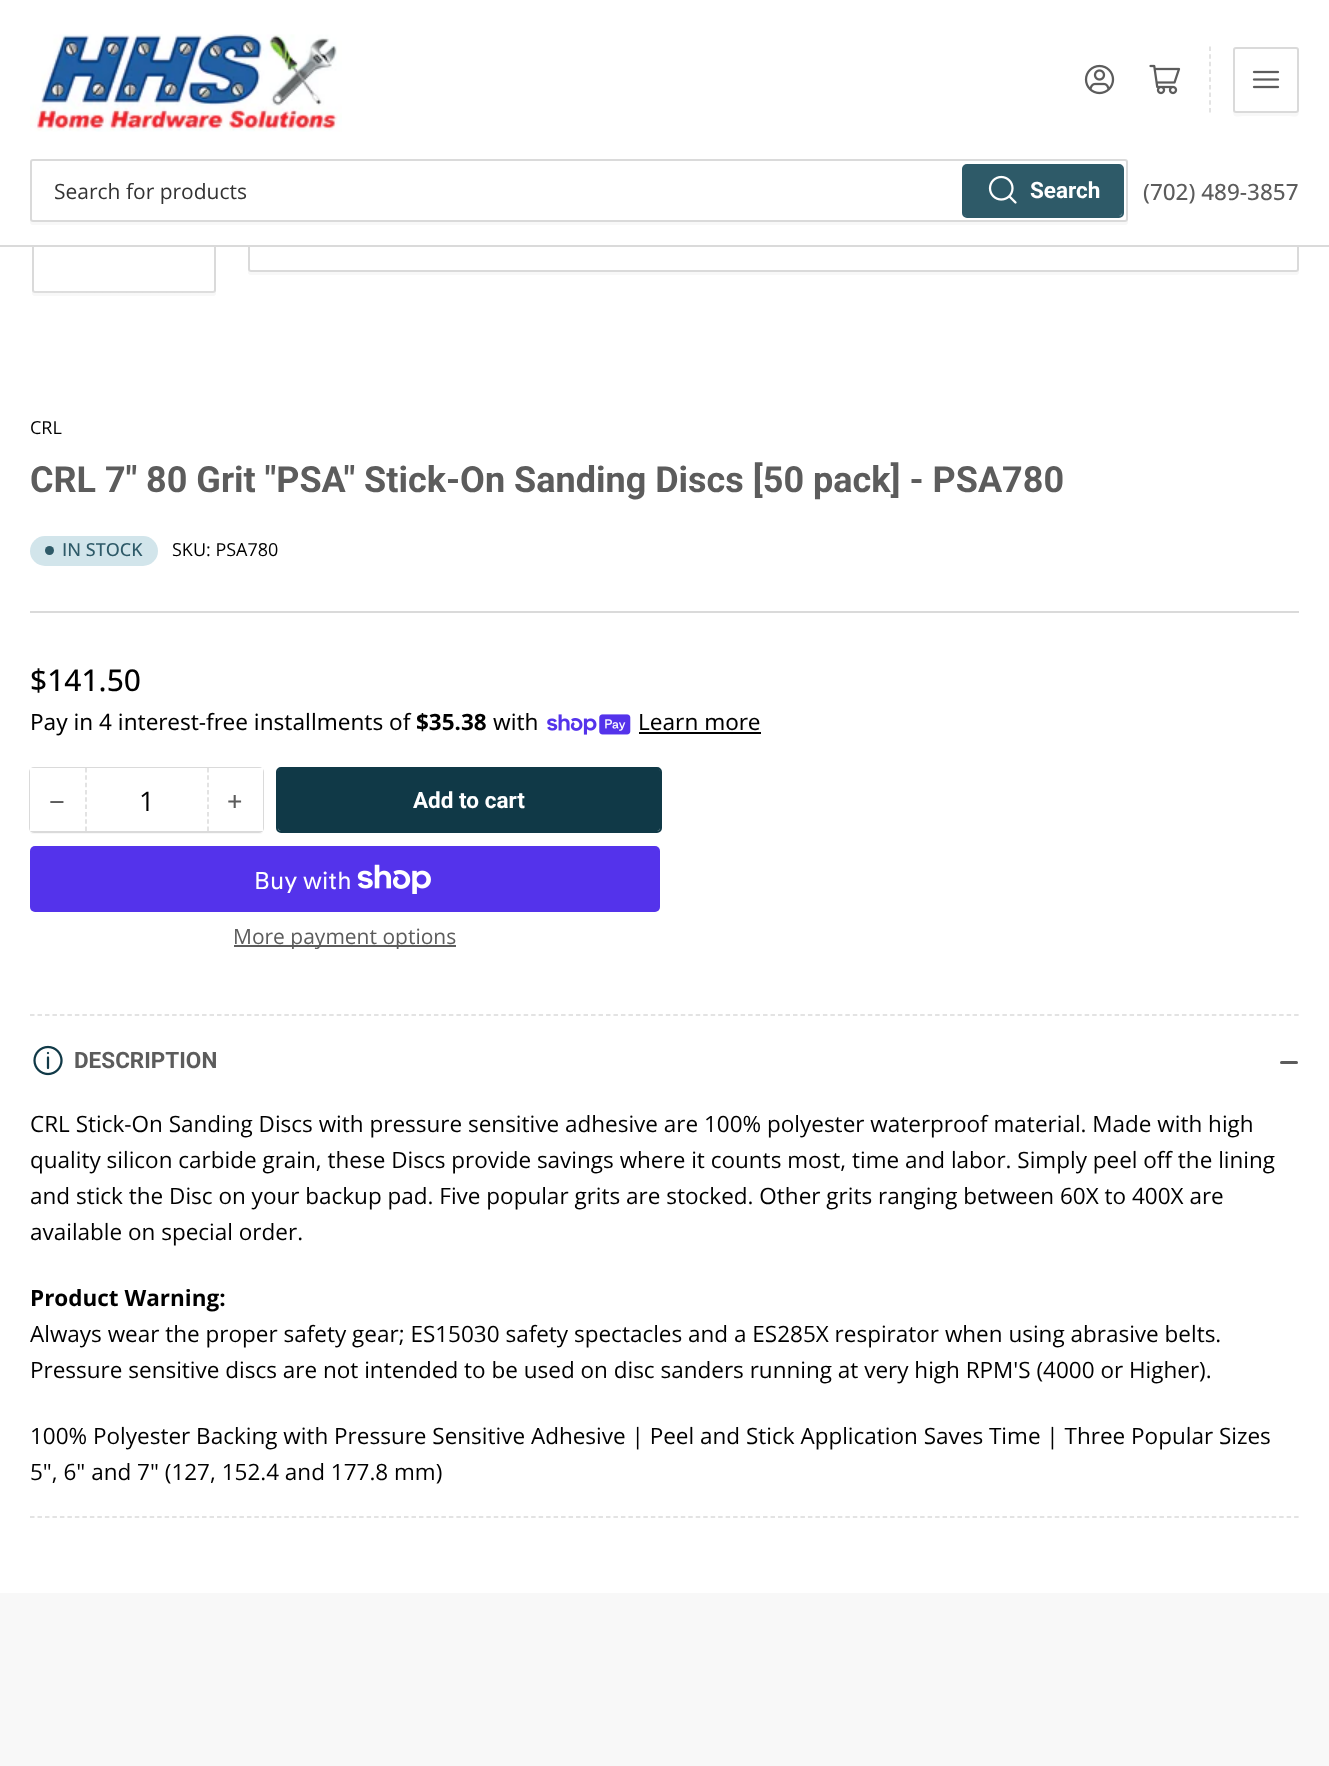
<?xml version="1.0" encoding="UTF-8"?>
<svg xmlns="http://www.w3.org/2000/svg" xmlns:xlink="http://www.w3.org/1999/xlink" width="1329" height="1766">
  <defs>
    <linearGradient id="g1" gradientUnits="userSpaceOnUse" x1="124" y1="339" x2="124" y2="287"><stop offset="0" stop-color="#ffffff" /><stop offset="1" stop-color="#ffffff" stop-opacity="0" /></linearGradient>
  </defs>
  <rect width="100%" height="100%" fill="#ffffff" />
  <path d="M 32 291 v 2 c 0 2 1 3 3 3 h 178 c 2 0 3 -1 3 -3 v -3 c 0 1 -1 2 -3 2 h -179 c -1 0 -1 0 -2 -1 z" fill="#f8f8f8" />
  <rect x="33" y="108" width="182" height="184" rx="2" fill="#ffffff" stroke="#dadada" stroke-width="2" />
  <path d="M 248 270 v 2 c 0 2 1 3 3 3 h 1045 c 2 0 3 -1 3 -3 v -4 c 0 2 -1 4 -3 4 h -1046 c -1 0 -1 -1 -2 -2 z" fill="#f8f8f8" />
  <rect x="249" y="-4" width="1049" height="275" rx="2" fill="none" stroke="#dadada" stroke-width="2" />
  <rect x="32" width="1267" height="245" fill="#ffffff" />
  <rect y="245" width="1329" height="2" fill="#dadada" />
  <image x="30" y="34" width="312" height="98" xlink:href="image1.png" />
  <image x="1084" y="64" width="31" height="31" xlink:href="image2.png" />
  <image x="1149" y="64" width="32" height="31" xlink:href="image3.png" />
  <path d="M 1210 46.5 v 66" fill="none" stroke="#dadada" stroke-width="1.5" stroke-dasharray="4.5 3.18" />
  <path d="M 1233 110 c 0 9 3 6 13 6 h 40 c 10 0 13 3 13 -6 c 0 1 -1 2 -3 2 h -60 c -2 0 -3 -1 -3 -2 z" fill="#f8f8f8" />
  <rect x="1234" y="48" width="64" height="64" rx="2" fill="none" stroke="#dadada" stroke-width="2" />
  <image x="1252" y="70" width="28" height="19" xlink:href="image4.png" />
  <path d="M 30 219 v 3 c 0 2 1 3 3 3 h 1092 c 2 0 3 -1 3 -3 v -3 c 0 2 -1 3 -3 3 h -1092 c -2 0 -3 -1 -3 -3 z" fill="#f8f8f8" />
  <rect x="31" y="160" width="1096" height="61" rx="2" fill="none" stroke="#dadada" stroke-width="2" />
  <rect x="963" y="165" width="160" height="52" rx="4" fill="none" stroke="#2e5a68" stroke-width="2" />
  <rect x="963" y="165" width="159" height="51" rx="3" fill="#2e5a68" />
  <image x="988" y="175" width="29" height="29" xlink:href="image5.png" />
  <rect x="33" y="291" width="182" height="2" fill="url(#g1)" />
  <rect x="30" y="611" width="1269" height="2" fill="#dadada" />
  <rect x="30" y="536" width="128" height="30" rx="15" fill="#d2e5eb" />
  <circle cx="49.5" cy="550.5" r="4.5" fill="#2e5a68" />
  <image x="547" y="714" width="84" height="21" xlink:href="image6.png" />
  <rect x="639" y="732" width="122" height="2" fill="#000000" />
  <path d="M 30 828 v 3 c 0 2 1 3 3 3 h 227 c 2 0 3 -1 3 -3 v -57 l -1 -2 v 56 c 0 2 -1 3 -2 3 h -227 c -2 0 -3 -1 -3 -3 z" fill="#f8f8f8" />
  <rect x="30" y="768" width="233" height="64" rx="4" fill="none" stroke="#dadada" stroke-width="2" />
  <rect x="86" y="768" width="123" height="1" fill="#ffffff" />
  <rect x="30" y="768" width="56" height="63" fill="#ffffff" />
  <path d="M 208 768 v 63" fill="none" stroke="#dadada" stroke-width="1.5" stroke-dasharray="4.5 2.82" />
  <path d="M 86 768 v 63" fill="none" stroke="#dadada" stroke-width="1.5" stroke-dasharray="4.5 2.82" />
  <rect x="209" y="768" width="54" height="63" fill="#ffffff" />
  <rect x="277" y="768" width="384" height="64" rx="4" fill="none" stroke="#103947" stroke-width="2" />
  <rect x="278" y="768" width="382" height="63" rx="3" fill="#103947" />
  <rect x="30" y="846" width="630" height="66" rx="5" fill="#5433eb" />
  <image x="357" y="864" width="74" height="30" xlink:href="image7.png" />
  <rect x="234" y="945" width="222" height="2" fill="#5c5c5c" />
  <path d="M 30 1015 h 1269" fill="none" stroke="#dadada" stroke-width="1.5" stroke-dasharray="4.5 2.98" />
  <path d="M 30 1517 h 1269" fill="none" stroke="#dadada" stroke-width="1.5" stroke-dasharray="4.5 2.98" />
  <image x="33" y="1045" width="30" height="31" xlink:href="image8.png" />
  <rect x="1280" y="1061" width="10" height="3" rx="1.5" fill="#5c5c5c" />
  <rect x="1286" y="1061" width="12" height="3" rx="1.5" fill="#5c5c5c" />
  <rect y="1593" width="1329" height="173" fill="#f8f8f8" />
  <text x="54" y="199" style="font-family: Open Sans; font-size: 21px; fill: #333333">Search for products</text>
  <text x="1030" y="198" style="font-family: Roboto; font-size: 22.5px; font-weight: bold; fill: #ffffff">Search</text>
  <text x="1143" y="200" style="font-family: Open Sans; font-size: 22.5px; font-weight: 500; fill: #5c5c5c">(702) 489-3857</text>
  <text x="30" y="434" style="font-family: Open Sans; font-size: 18px; fill: #000000">CRL</text>
  <text x="30" y="492" style="font-family: Roboto; font-size: 36px; font-weight: bold; fill: #5c5c5c">CRL 7" 80 Grit "PSA" Stick-On Sanding Discs [50 pack] - PSA780</text>
  <text x="62" y="556" style="font-family: Open Sans; font-size: 18px; font-weight: 500; fill: #2e5a68">IN STOCK</text>
  <text x="172" y="556" style="font-family: Open Sans; font-size: 18px; fill: #000000">SKU: PSA780</text>
  <text x="30" y="691" style="font-family: Open Sans; font-size: 30px; font-weight: 500; fill: #000000">$141.50</text>
  <text x="30" y="730" style="font-family: Noto Sans; font-size: 22.5px; fill: #000000">Pay in 4 interest-free installments of</text>
  <text x="416" y="730" style="font-family: Noto Sans; font-size: 22.5px; font-weight: bold; fill: #000000">$35.38</text>
  <text x="493" y="730" style="font-family: Noto Sans; font-size: 22.5px; fill: #000000">with</text>
  <text x="638" y="730" style="font-family: Noto Sans; font-size: 22.5px; fill: #000000">Learn more</text>
  <text x="49" y="811" style="font-family: Liberation Sans; font-size: 27px; fill: #5c5c5c">−</text>
  <text x="139" y="811" style="font-family: Open Sans; font-size: 27px; fill: #000000">1</text>
  <text x="227" y="811" style="font-family: Open Sans; font-size: 27px; font-weight: 500; fill: #5c5c5c">+</text>
  <text x="413" y="808" style="font-family: Roboto; font-size: 22.5px; font-weight: bold; fill: #ffffff">Add to cart</text>
  <text x="254" y="889" style="font-family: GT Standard; font-size: 24px; fill: #ffffff">Buy with</text>
  <text x="233" y="944" style="font-family: Open Sans; font-size: 21px; fill: #5c5c5c">More payment options</text>
  <text x="74" y="1068" style="font-family: Roboto; font-size: 22.5px; font-weight: bold; fill: #5c5c5c">DESCRIPTION</text>
  <text x="30" y="1132" style="font-family: Open Sans; font-size: 22.5px; fill: #000000">CRL Stick-On Sanding Discs with pressure sensitive adhesive are 100% polyester waterproof material. Made with high</text>
  <text x="30" y="1168" style="font-family: Open Sans; font-size: 22.5px; fill: #000000">quality silicon carbide grain, these Discs provide savings where it counts most, time and labor. Simply peel off the lining</text>
  <text x="30" y="1204" style="font-family: Open Sans; font-size: 22.5px; fill: #000000">and stick the Disc on your backup pad. Five popular grits are stocked. Other grits ranging between 60X to 400X are</text>
  <text x="30" y="1240" style="font-family: Open Sans; font-size: 22.5px; fill: #000000">available on special order.</text>
  <text x="30" y="1306" style="font-family: Open Sans; font-size: 22.5px; font-weight: bold; fill: #000000">Product Warning:</text>
  <text x="30" y="1342" style="font-family: Open Sans; font-size: 22.5px; fill: #000000">Always wear the proper safety gear; ES15030 safety spectacles and a ES285X respirator when using abrasive belts.</text>
  <text x="30" y="1378" style="font-family: Open Sans; font-size: 22.5px; fill: #000000">Pressure sensitive discs are not intended to be used on disc sanders running at very high RPM'S (4000 or Higher).</text>
  <text x="30" y="1444" style="font-family: Open Sans; font-size: 22.5px; fill: #000000">100% Polyester Backing with Pressure Sensitive Adhesive | Peel and Stick Application Saves Time | Three Popular Sizes</text>
  <text x="30" y="1480" style="font-family: Open Sans; font-size: 22.5px; fill: #000000">5", 6" and 7" (127, 152.4 and 177.8 mm)</text>
</svg>
